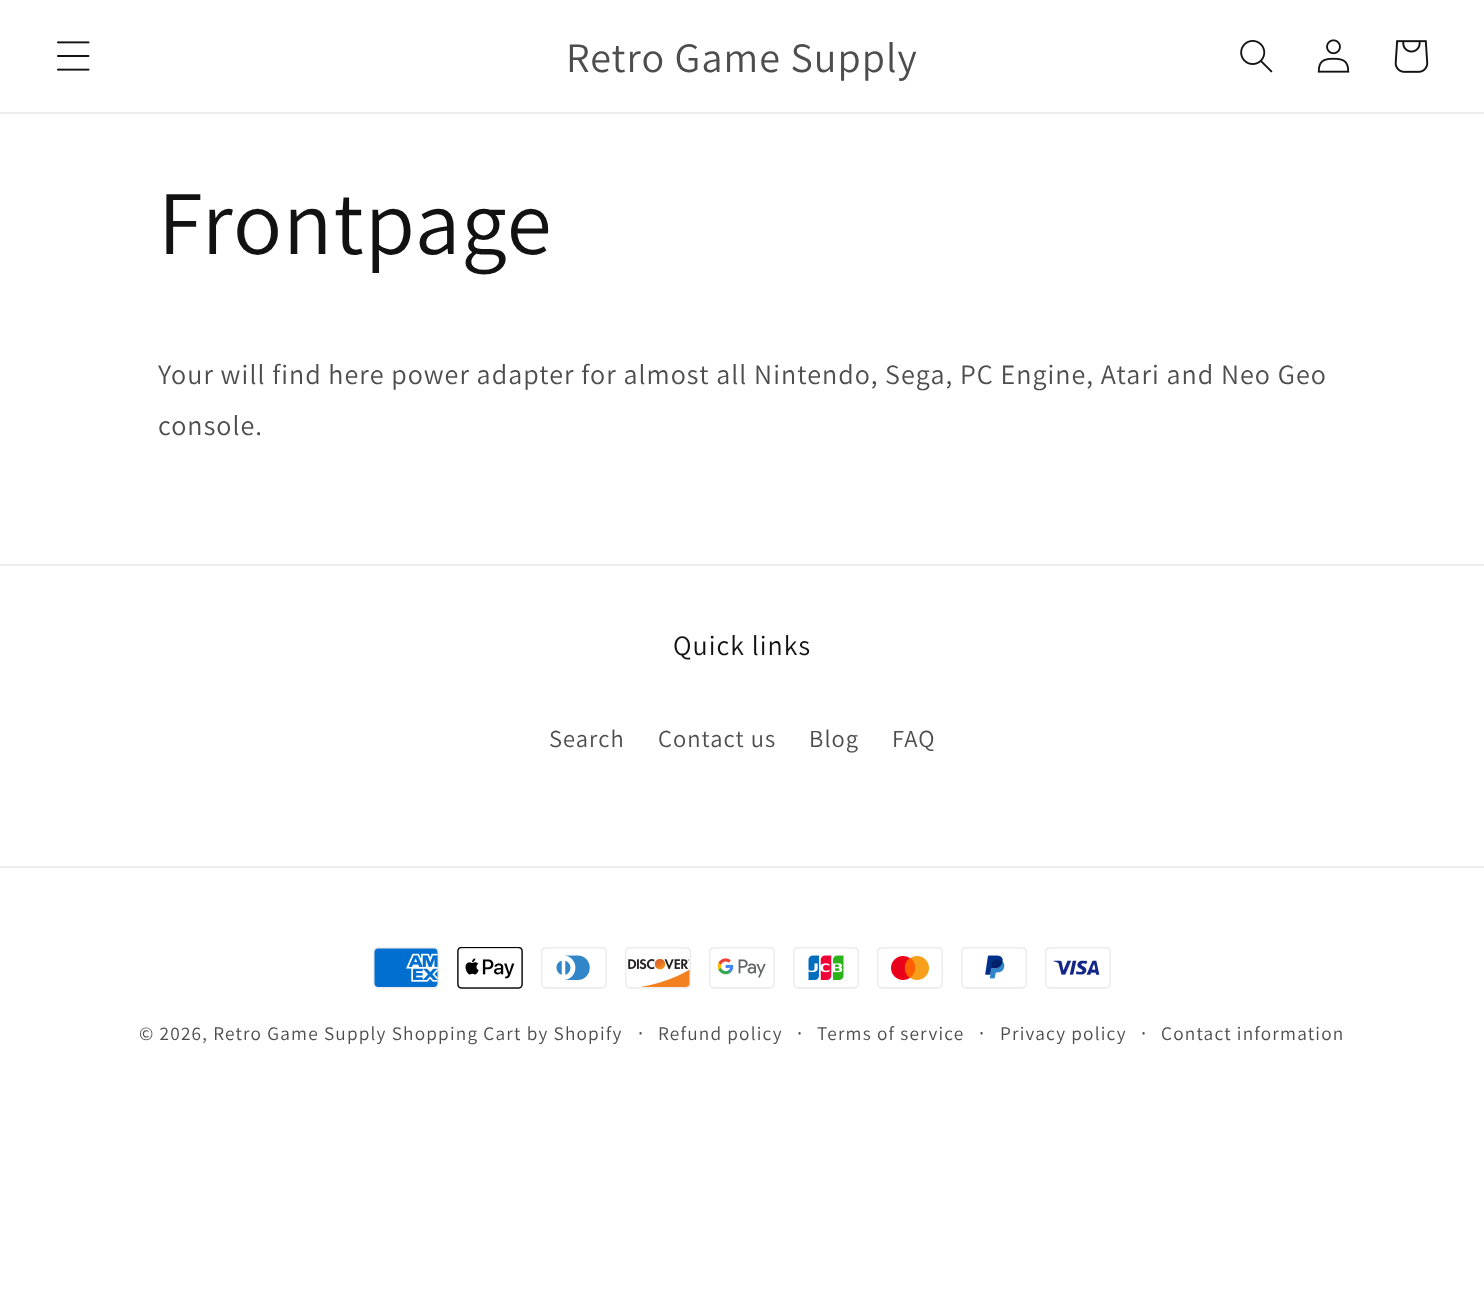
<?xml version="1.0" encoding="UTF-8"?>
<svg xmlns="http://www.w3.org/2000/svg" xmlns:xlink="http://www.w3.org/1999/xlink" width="1484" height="1291">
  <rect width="100%" height="100%" fill="#ffffff" />
  <rect y="112" width="1484" height="2" fill="#ececec" />
  <image x="57" y="41" width="33" height="30" xlink:href="image1.png" />
  <image x="1240" y="40" width="33" height="33" xlink:href="image2.png" />
  <image x="1317" y="39" width="33" height="34" xlink:href="image3.png" />
  <image x="1394" y="40" width="35" height="33" xlink:href="image4.png" />
  <rect y="564" width="1484" height="2" fill="#ececec" />
  <rect y="866" width="1484" height="2" fill="#ececec" />
  <image x="373" y="947" width="66" height="42" xlink:href="image5.png" />
  <image x="457" y="947" width="66" height="42" xlink:href="image6.png" />
  <image x="541" y="947" width="66" height="42" xlink:href="image7.png" />
  <image x="625" y="947" width="66" height="42" xlink:href="image8.png" />
  <image x="709" y="947" width="66" height="42" xlink:href="image9.png" />
  <image x="793" y="947" width="66" height="42" xlink:href="image10.png" />
  <image x="877" y="947" width="66" height="42" xlink:href="image11.png" />
  <image x="961" y="947" width="66" height="42" xlink:href="image12.png" />
  <image x="1045" y="947" width="66" height="42" xlink:href="image13.png" />
  <text x="566" y="72" style="font-family: Assistant; font-size: 42px; letter-spacing: 1.05px; fill: #4d4d4d">Retro Game Supply</text>
  <text x="158" y="254" style="font-family: Assistant; font-size: 91px; letter-spacing: 1.05px; fill: #121212">Frontpage</text>
  <text x="158" y="384" style="font-family: Assistant; font-size: 28px; letter-spacing: 1.05px; fill: #4d4d4d">Your will find here power adapter for almost all Nintendo, Sega, PC Engine, Atari and Neo Geo</text>
  <text x="158" y="435" style="font-family: Assistant; font-size: 28px; letter-spacing: 1.05px; fill: #4d4d4d">console.</text>
  <text x="673" y="655" style="font-family: Assistant; font-size: 28px; letter-spacing: 1.05px; fill: #121212">Quick links</text>
  <text x="549" y="747" style="font-family: Assistant; font-size: 24.5px; letter-spacing: 1.05px; fill: #4d4d4d">Search</text>
  <text x="658" y="747" style="font-family: Assistant; font-size: 24.5px; letter-spacing: 1.05px; fill: #4d4d4d">Contact us</text>
  <text x="809" y="747" style="font-family: Assistant; font-size: 24.5px; letter-spacing: 1.05px; fill: #4d4d4d">Blog</text>
  <text x="892" y="747" style="font-family: Assistant; font-size: 24.5px; letter-spacing: 1.05px; fill: #4d4d4d">FAQ</text>
  <text x="139" y="1040" style="font-family: Assistant; font-size: 19.25px; letter-spacing: 1.2px; fill: #4d4d4d">© 2026, Retro Game Supply Shopping Cart by Shopify</text>
  <text x="638" y="1040" style="font-family: Assistant; font-size: 21px; letter-spacing: 1.2px; fill: #4d4d4d">·</text>
  <text x="658" y="1040" style="font-family: Assistant; font-size: 19.25px; letter-spacing: 1.2px; fill: #4d4d4d">Refund policy</text>
  <text x="797" y="1040" style="font-family: Assistant; font-size: 21px; letter-spacing: 1.2px; fill: #4d4d4d">·</text>
  <text x="817" y="1040" style="font-family: Assistant; font-size: 19.25px; letter-spacing: 1.2px; fill: #4d4d4d">Terms of service</text>
  <text x="979" y="1040" style="font-family: Assistant; font-size: 21px; letter-spacing: 1.2px; fill: #4d4d4d">·</text>
  <text x="1000" y="1040" style="font-family: Assistant; font-size: 19.25px; letter-spacing: 1.2px; fill: #4d4d4d">Privacy policy</text>
  <text x="1141" y="1040" style="font-family: Assistant; font-size: 21px; letter-spacing: 1.2px; fill: #4d4d4d">·</text>
  <text x="1161" y="1040" style="font-family: Assistant; font-size: 19.25px; letter-spacing: 1.2px; fill: #4d4d4d">Contact information</text>
</svg>
